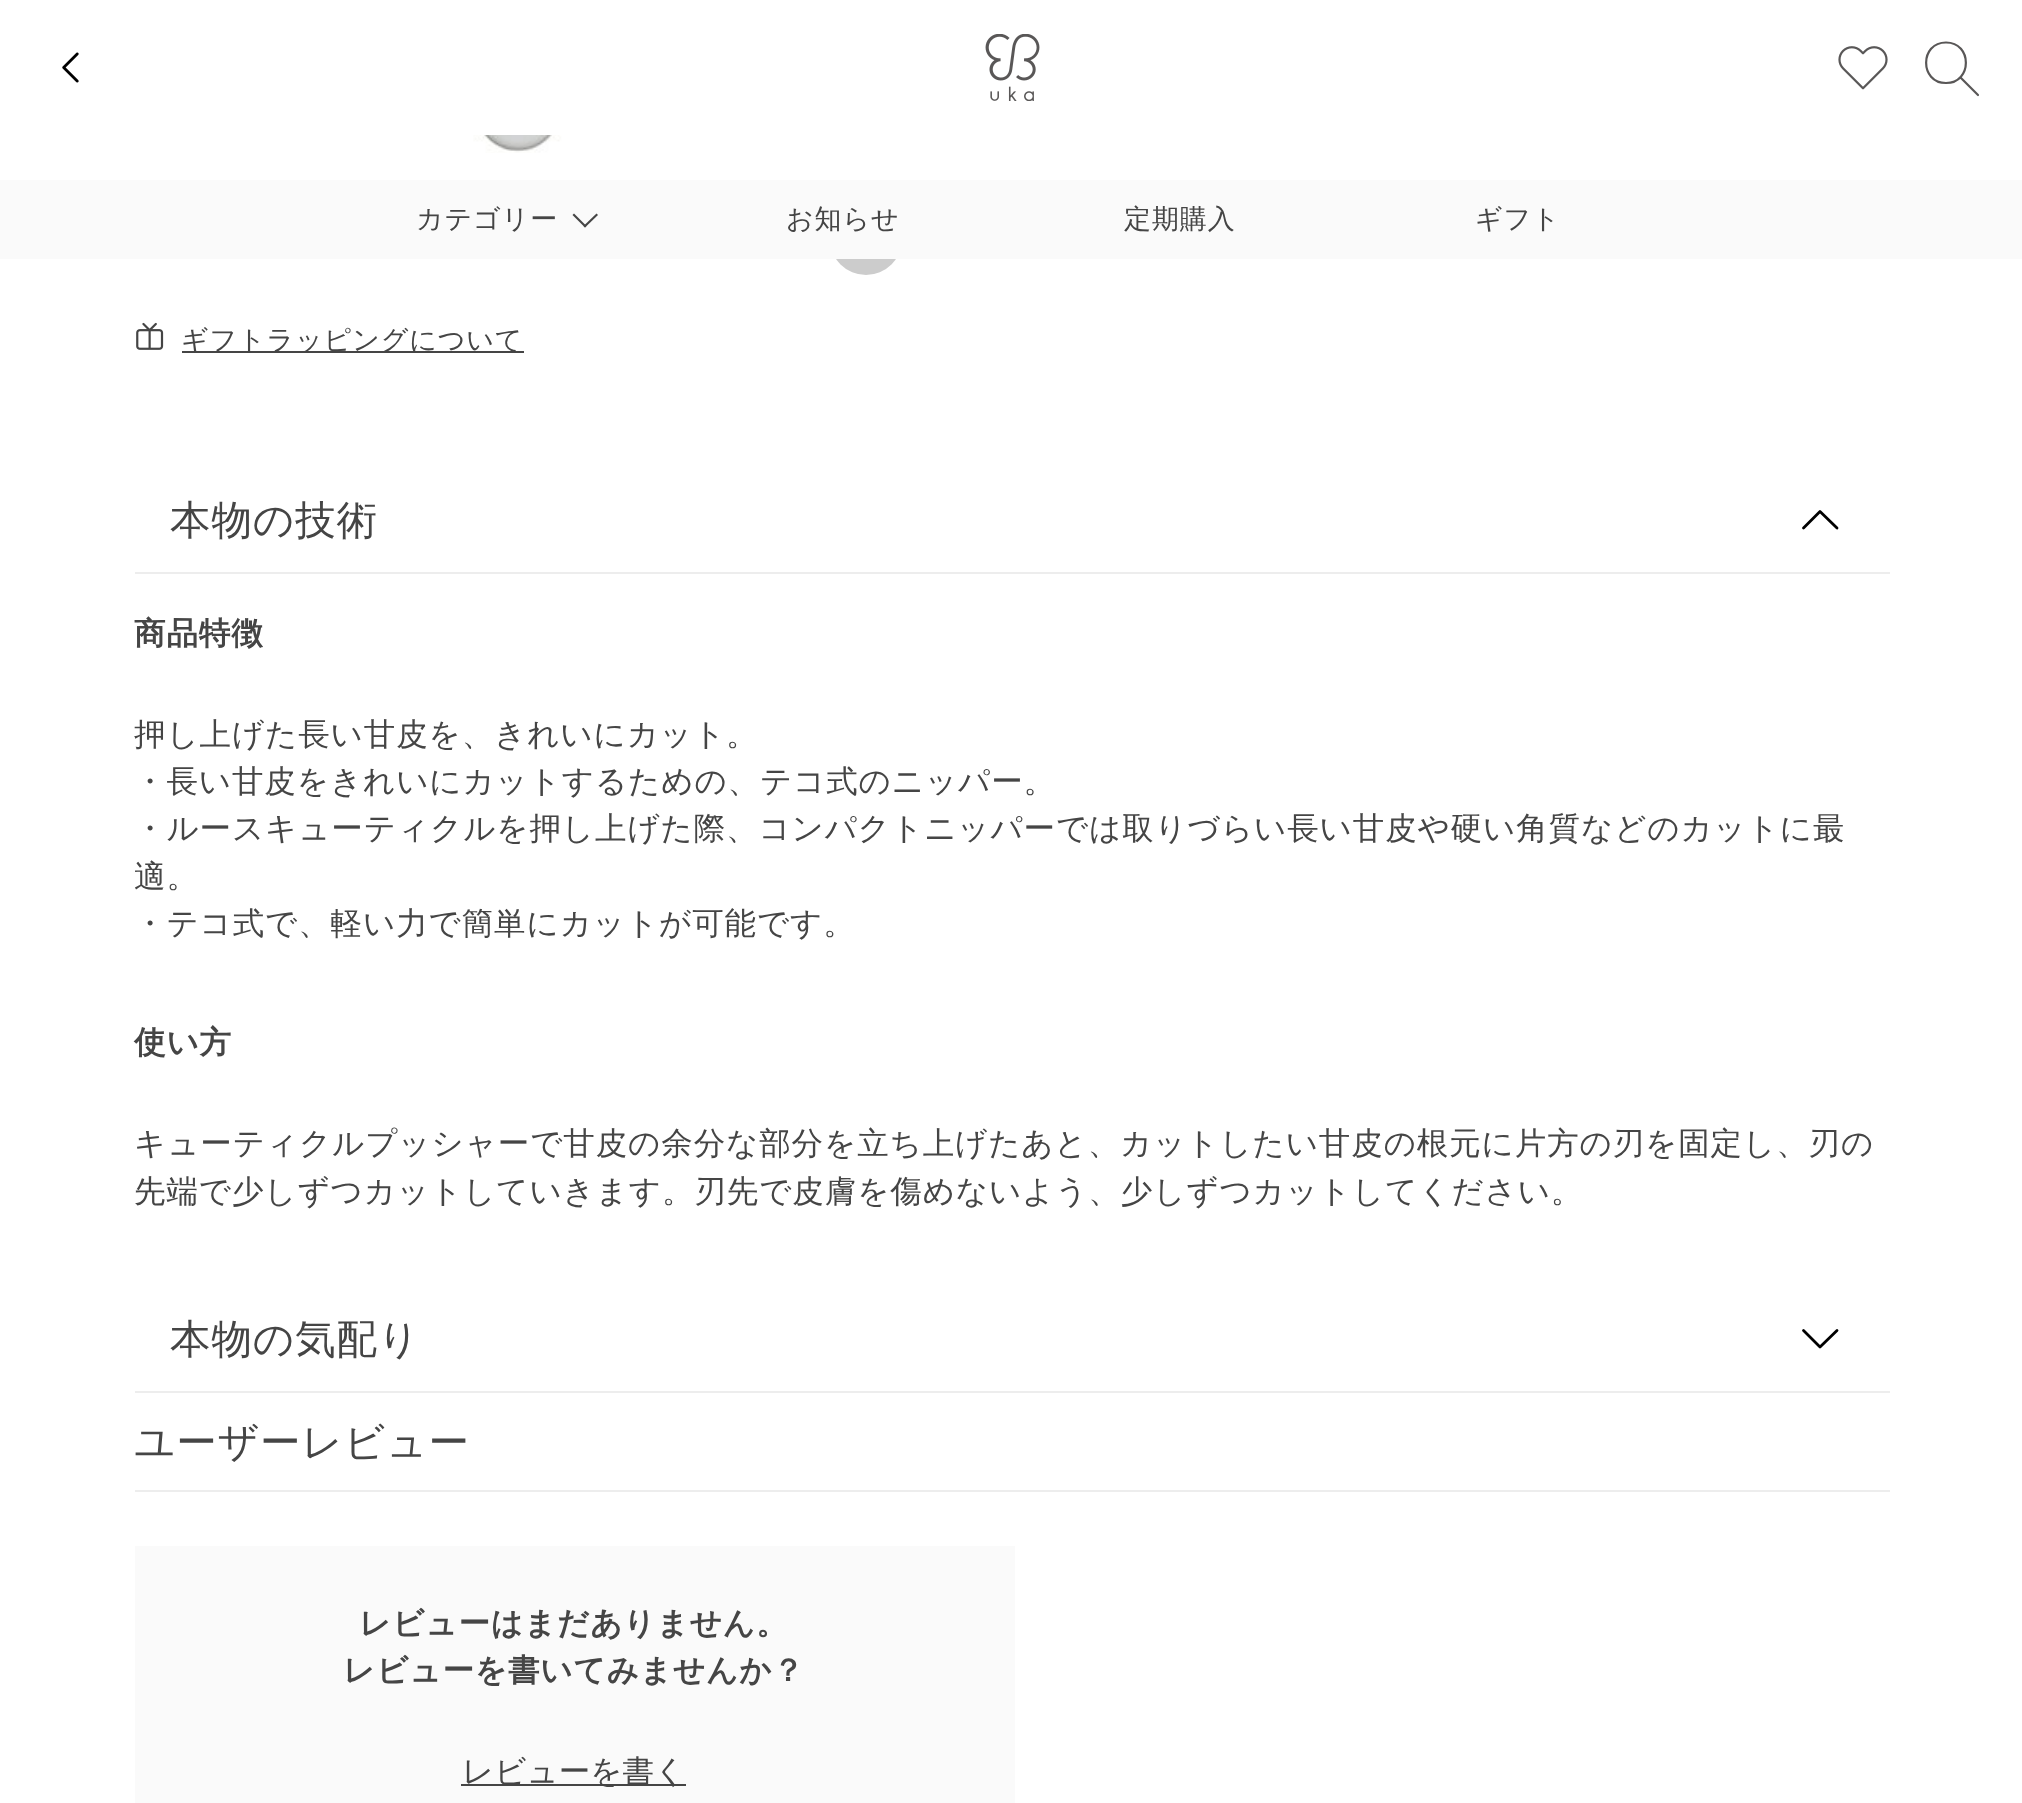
<?xml version="1.0" encoding="UTF-8"?>
<svg xmlns="http://www.w3.org/2000/svg" xmlns:xlink="http://www.w3.org/1999/xlink" width="2022" height="1803">
  <rect width="100%" height="100%" fill="#ffffff" />
  <image x="62" y="52" width="17" height="31" xlink:href="image1.png" />
  <image x="985" y="34" width="55" height="67" xlink:href="image2.png" />
  <image x="1838" y="46" width="50" height="44" xlink:href="image3.png" />
  <path d="M 1946 83 c 26.5 0 26.5 -40.5 0 -40.5 c -26.5 0 -26.5 40.5 0 40.5 z m 32 12 l -17.5 -17.5" fill="none" stroke="#595757" stroke-width="2.2" stroke-linecap="round" stroke-linejoin="round" />
  <circle cx="866" cy="239" r="36" fill="#cccccc" />
  <rect y="180" width="2022" height="79" fill="#fafafa" />
  <path d="M 596.5 213.5 l 1.5 1.5 l -13 12.5 l -1.5 -1.5 z" fill="#454545" />
  <path d="M 574 213.5 l 12.5 12.5 l -1.5 1.5 l -12.5 -12.5 z" fill="#454545" />
  <image x="448" y="135" width="140" height="18" xlink:href="image4.png" />
  <image x="136" y="322" width="28" height="28" xlink:href="image5.png" />
  <rect x="182" y="351" width="342" height="2" fill="#454545" />
  <rect x="135" y="572" width="1755" height="2" fill="#ededed" />
  <path d="M 1837 528 l -17 -16.5 l -16.5 16.5" fill="none" stroke="#000000" stroke-width="2.8" stroke-linecap="round" stroke-linejoin="round" />
  <rect x="135" y="1391" width="1755" height="2" fill="#ededed" />
  <path d="M 1803.5 1330.5 l 16.5 16.5 l 17 -16.5" fill="none" stroke="#000000" stroke-width="2.8" stroke-linecap="round" stroke-linejoin="round" />
  <rect x="135" y="1490" width="1755" height="2" fill="#ededed" />
  <rect x="135" y="1546" width="880" height="257" fill="#fafafa" />
  <rect x="461" y="1784" width="225" height="2" fill="#454545" />
  <text x="416" y="228" style="font-family: WenQuanYi Zen Hei; font-size: 27px; font-weight: 500; letter-spacing: 0.9px; fill: #454545">カテゴリー</text>
  <text x="786" y="228" style="font-family: WenQuanYi Zen Hei; font-size: 27px; font-weight: 500; letter-spacing: 0.9px; fill: #454545">お知らせ</text>
  <text x="1124" y="228" style="font-family: WenQuanYi Zen Hei; font-size: 27px; font-weight: 500; letter-spacing: 0.9px; fill: #454545">定期購入</text>
  <text x="1475" y="228" style="font-family: WenQuanYi Zen Hei; font-size: 27px; font-weight: 500; letter-spacing: 0.9px; fill: #454545">ギフト</text>
  <text x="181" y="349" style="font-family: WenQuanYi Zen Hei; font-size: 27px; font-weight: 500; letter-spacing: 0.9px; fill: #454545">ギフトラッピングについて</text>
  <text x="170" y="534" style="font-family: WenQuanYi Zen Hei; font-size: 40.5px; font-weight: 500; letter-spacing: 0.9px; fill: #454545">本物の技術</text>
  <text x="134" y="644" style="font-family: WenQuanYi Zen Hei; font-size: 31.5px; font-weight: bold; letter-spacing: 0.9px; fill: #454545">商品特徴</text>
  <text x="134" y="745" style="font-family: WenQuanYi Zen Hei; font-size: 31.5px; font-weight: 500; letter-spacing: 0.9px; fill: #454545">押し上げた長い甘皮を、きれいにカット。</text>
  <text x="134" y="792" style="font-family: WenQuanYi Zen Hei; font-size: 31.5px; font-weight: 500; letter-spacing: 0.9px; fill: #454545">・長い甘皮をきれいにカットするための、テコ式のニッパー。</text>
  <text x="134" y="839" style="font-family: WenQuanYi Zen Hei; font-size: 31.5px; font-weight: 500; letter-spacing: 0.9px; fill: #454545">・ルースキューティクルを押し上げた際、コンパクトニッパーでは取りづらい長い甘皮や硬い角質などのカットに最</text>
  <text x="134" y="887" style="font-family: WenQuanYi Zen Hei; font-size: 31.5px; font-weight: 500; letter-spacing: 0.9px; fill: #454545">適。</text>
  <text x="134" y="934" style="font-family: WenQuanYi Zen Hei; font-size: 31.5px; font-weight: 500; letter-spacing: 0.9px; fill: #454545">・テコ式で、軽い力で簡単にカットが可能です。</text>
  <text x="134" y="1053" style="font-family: WenQuanYi Zen Hei; font-size: 31.5px; font-weight: bold; letter-spacing: 0.9px; fill: #454545">使い方</text>
  <text x="134" y="1154" style="font-family: WenQuanYi Zen Hei; font-size: 31.5px; font-weight: 500; letter-spacing: 0.9px; fill: #454545">キューティクルプッシャーで甘皮の余分な部分を立ち上げたあと、カットしたい甘皮の根元に片方の刃を固定し、刃の</text>
  <text x="134" y="1202" style="font-family: WenQuanYi Zen Hei; font-size: 31.5px; font-weight: 500; letter-spacing: 0.9px; fill: #454545">先端で少しずつカットしていきます。刃先で皮膚を傷めないよう、少しずつカットしてください。</text>
  <text x="170" y="1353" style="font-family: WenQuanYi Zen Hei; font-size: 40.5px; font-weight: 500; letter-spacing: 0.9px; fill: #454545">本物の気配り</text>
  <text x="134" y="1456" style="font-family: WenQuanYi Zen Hei; font-size: 40.5px; font-weight: 500; letter-spacing: 0.9px; fill: #454545">ユーザーレビュー</text>
  <text x="359" y="1634" style="font-family: WenQuanYi Zen Hei; font-size: 31.5px; font-weight: bold; letter-spacing: 0.9px; fill: #454545">レビューはまだありません。</text>
  <text x="343" y="1681" style="font-family: WenQuanYi Zen Hei; font-size: 31.5px; font-weight: bold; letter-spacing: 0.9px; fill: #454545">レビューを書いてみませんか？</text>
  <text x="462" y="1782" style="font-family: WenQuanYi Zen Hei; font-size: 31.5px; font-weight: 500; fill: #454545">レビューを書く</text>
</svg>
